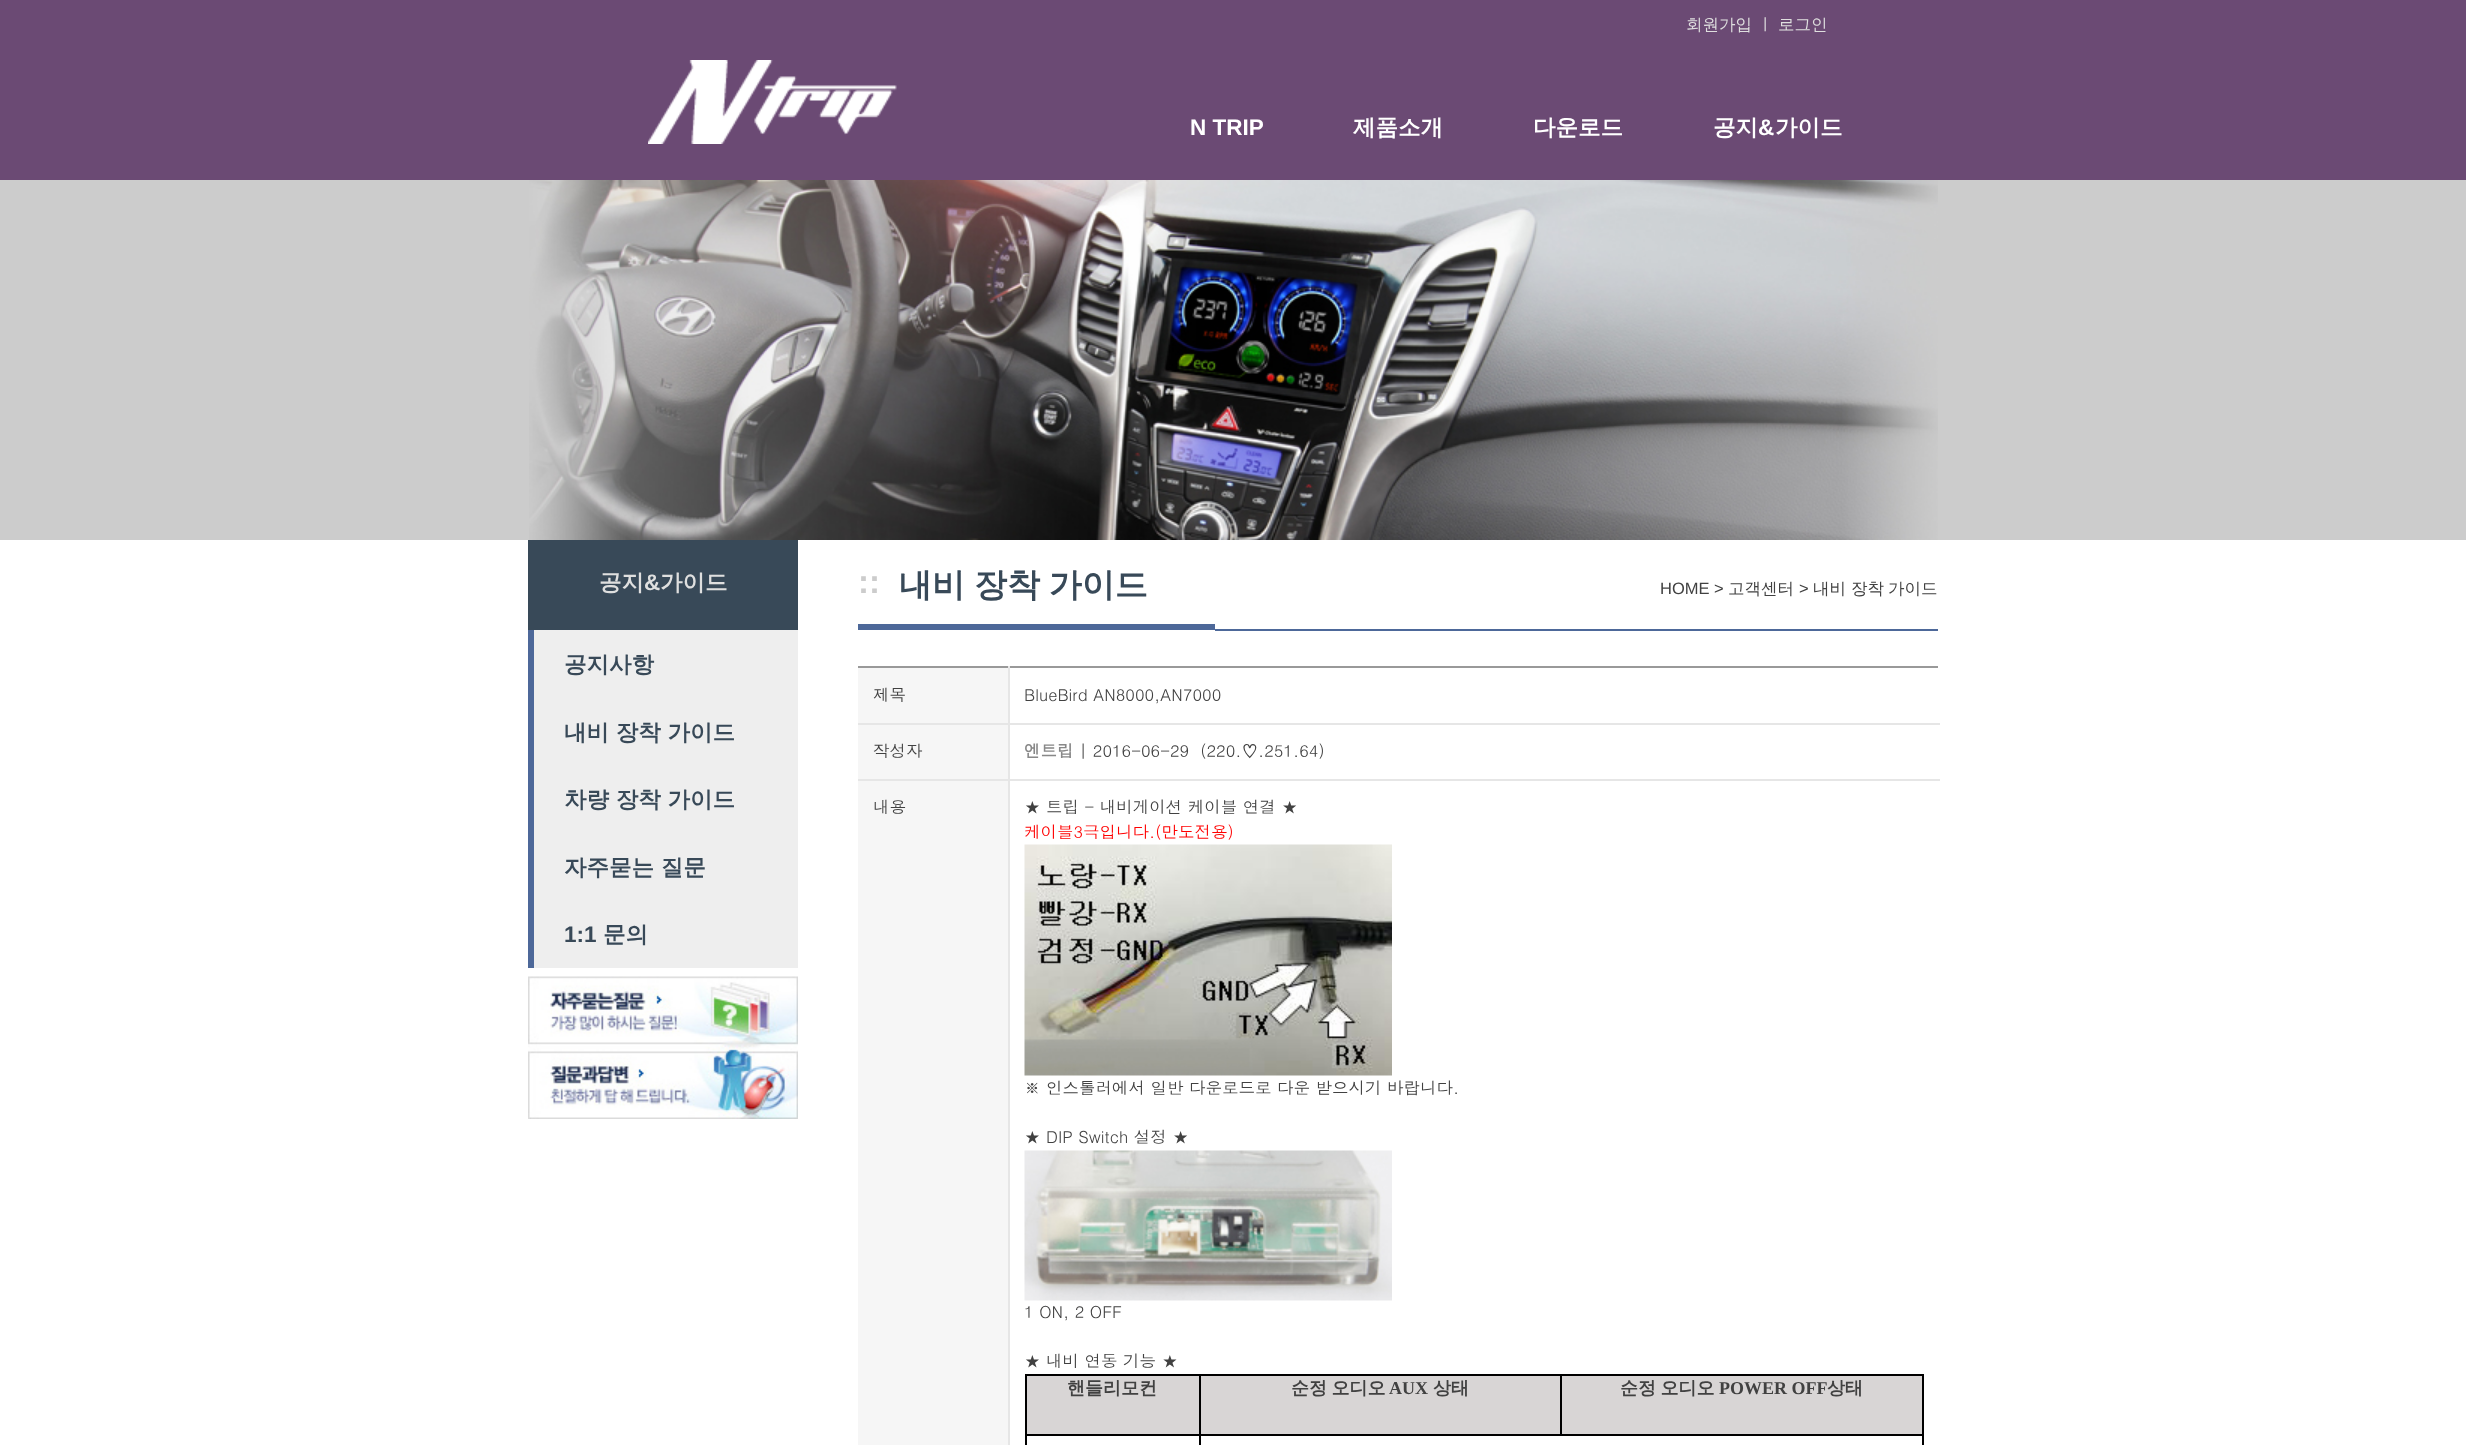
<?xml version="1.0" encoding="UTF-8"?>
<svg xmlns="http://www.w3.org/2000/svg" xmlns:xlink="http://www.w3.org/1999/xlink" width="2466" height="1445">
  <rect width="100%" height="100%" fill="#ffffff" />
  <rect width="2466" height="180" fill="#6b4a74" />
  <image x="648" y="60" width="249" height="84" xlink:href="image1.png" />
  <rect y="180" width="2466" height="360" fill="#cccccc" />
  <image x="529" y="180" width="1409" height="360" xlink:href="image2.png" />
  <rect x="528" y="540" width="270" height="90" fill="#384958" />
  <rect x="534" y="630" width="264" height="338" fill="#eeeeee" />
  <rect x="528" y="630" width="6" height="338" fill="#4d6899" />
  <image x="528" y="976" width="270" height="143" xlink:href="image3.png" />
  <rect x="858" y="624" width="357" height="6" fill="#4d6899" />
  <rect x="1215" y="629" width="723" height="2" fill="#4d6899" />
  <rect x="858" y="666" width="1080" height="2" fill="#999999" />
  <rect x="858" y="668" width="150" height="55" fill="#f6f6f6" />
  <rect x="1008" y="779" width="2" height="666" fill="#e6e6e6" />
  <rect x="1008" y="779" width="932" height="2" fill="#e6e6e6" />
  <rect x="1008" y="723" width="2" height="57" fill="#e6e6e6" />
  <rect x="1008" y="723" width="932" height="2" fill="#e6e6e6" />
  <rect x="1008" y="666" width="2" height="59" fill="#e6e6e6" />
  <rect x="858" y="723" width="152" height="2" fill="#e6e6e6" />
  <rect x="858" y="725" width="150" height="54" fill="#f6f6f6" />
  <rect x="858" y="779" width="152" height="2" fill="#e6e6e6" />
  <rect x="858" y="781" width="150" height="664" fill="#f6f6f6" />
  <image x="1024" y="844" width="368" height="232" xlink:href="image4.png" />
  <image x="1024" y="1150" width="368" height="151" xlink:href="image5.png" />
  <rect x="1027" y="1376" width="172" height="58" fill="#d8d5d5" />
  <rect x="1560" y="1374" width="363" height="2" fill="#000000" />
  <rect x="1199" y="1434" width="724" height="2" fill="#000000" />
  <rect x="1560" y="1374" width="2" height="62" fill="#000000" />
  <rect x="1199" y="1374" width="363" height="2" fill="#000000" />
  <rect x="1199" y="1434" width="2" height="11" fill="#000000" />
  <rect x="1025" y="1434" width="175" height="2" fill="#000000" />
  <rect x="1199" y="1374" width="2" height="62" fill="#000000" />
  <rect x="1025" y="1374" width="175" height="2" fill="#000000" />
  <rect x="1025" y="1434" width="2" height="11" fill="#000000" />
  <rect x="1025" y="1374" width="2" height="62" fill="#000000" />
  <rect x="1201" y="1376" width="359" height="58" fill="#d8d5d5" />
  <rect x="1562" y="1376" width="360" height="58" fill="#d8d5d5" />
  <rect x="1922" y="1434" width="2" height="11" fill="#000000" />
  <rect x="1922" y="1374" width="2" height="62" fill="#000000" />
  <text x="1686" y="30" style="font-family: WenQuanYi Zen Hei; font-size: 16.5px; font-weight: 500; fill: #dfdfdf">회원가입 ㅣ</text>
  <text x="1778" y="30" style="font-family: WenQuanYi Zen Hei; font-size: 16.5px; font-weight: 500; fill: #dfdfdf">로그인</text>
  <text x="1190" y="135" style="font-family: Liberation Sans; font-size: 22.5px; font-weight: bold; fill: #ffffff">N TRIP</text>
  <text x="1353" y="135" style="font-family: WenQuanYi Zen Hei; font-size: 22.5px; font-weight: bold; fill: #ffffff">제품소개</text>
  <text x="1533" y="135" style="font-family: WenQuanYi Zen Hei; font-size: 22.5px; font-weight: bold; fill: #ffffff">다운로드</text>
  <text x="1713" y="135" style="font-family: WenQuanYi Zen Hei; font-size: 22.5px; font-weight: bold; fill: #ffffff">공지</text>
  <text x="1758" y="135" style="font-family: Liberation Sans; font-size: 22.5px; font-weight: bold; fill: #ffffff">&amp;</text>
  <text x="1775" y="135" style="font-family: WenQuanYi Zen Hei; font-size: 22.5px; font-weight: bold; fill: #ffffff">가이드</text>
  <text x="599" y="590" style="font-family: WenQuanYi Zen Hei; font-size: 22.5px; font-weight: bold; fill: #dfdfdf">공지</text>
  <text x="644" y="590" style="font-family: Liberation Sans; font-size: 22.5px; font-weight: bold; fill: #dfdfdf">&amp;</text>
  <text x="660" y="590" style="font-family: WenQuanYi Zen Hei; font-size: 22.5px; font-weight: bold; fill: #dfdfdf">가이드</text>
  <text x="564" y="672" style="font-family: WenQuanYi Zen Hei; font-size: 22.5px; font-weight: bold; fill: #384958">공지사항</text>
  <text x="564" y="740" style="font-family: WenQuanYi Zen Hei; font-size: 22.5px; font-weight: bold; fill: #384958">내비 장착 가이드</text>
  <text x="564" y="807" style="font-family: WenQuanYi Zen Hei; font-size: 22.5px; font-weight: bold; fill: #384958">차량 장착 가이드</text>
  <text x="564" y="875" style="font-family: WenQuanYi Zen Hei; font-size: 22.5px; font-weight: bold; fill: #384958">자주묻는 질문</text>
  <text x="564" y="942" style="font-family: Liberation Sans; font-size: 22.5px; font-weight: bold; fill: #384958">1:1</text>
  <text x="603" y="942" style="font-family: WenQuanYi Zen Hei; font-size: 22.5px; font-weight: bold; fill: #384958">문의</text>
  <text x="858" y="593" style="font-family: Liberation Sans; font-size: 33px; font-weight: bold; fill: #cccccc">::</text>
  <text x="899" y="596" word-spacing="-1" style="font-family: WenQuanYi Zen Hei; font-size: 33px; font-weight: bold; fill: #384958">내비 장착 가이드</text>
  <text x="1660" y="594" style="font-family: Liberation Sans; font-size: 16.5px; fill: #414141">HOME &gt;</text>
  <text x="1728" y="594" style="font-family: WenQuanYi Zen Hei; font-size: 16.5px; font-weight: 500; fill: #414141">고객센터</text>
  <text x="1799" y="594" style="font-family: Liberation Sans; font-size: 16.5px; fill: #414141">&gt;</text>
  <text x="1813" y="594" style="font-family: WenQuanYi Zen Hei; font-size: 16.5px; font-weight: 500; fill: #414141">내비</text>
  <text x="1851" y="594" style="font-family: WenQuanYi Zen Hei; font-size: 16.5px; font-weight: 500; fill: #414141">장착</text>
  <text x="1888" y="594" style="font-family: WenQuanYi Zen Hei; font-size: 16.5px; font-weight: 500; fill: #414141">가이드</text>
  <text x="873" y="701" style="font-family: Dotum; font-size: 16.5px; fill: #414141">제목</text>
  <text x="1024" y="701" style="font-family: Dotum; font-size: 16.5px; fill: #414141">BlueBird AN8000,AN7000</text>
  <text x="873" y="757" style="font-family: Dotum; font-size: 16.5px; fill: #414141">작성자</text>
  <text x="1024" y="757" style="font-family: Dotum; font-size: 16.5px; font-weight: bold; fill: #888888">엔트립</text>
  <text x="1079" y="757" style="font-family: Dotum; font-size: 16.5px; fill: #414141" xml:space="preserve">| 2016-06-29  (220.♡.251.64)</text>
  <text x="873" y="813" style="font-family: Dotum; font-size: 16.5px; fill: #414141">내용</text>
  <text x="1024" y="813" style="font-family: Dotum; font-size: 16.5px; fill: #414141">★ 트립 - 내비게이션 케이블 연결 ★</text>
  <text x="1024" y="838" style="font-family: Dotum; font-size: 16.5px; fill: #ff0000">케이블3극입니다.(만도전용)</text>
  <text x="1024" y="1094" style="font-family: Dotum; font-size: 16.5px; fill: #414141">※ 인스톨러에서 일반 다운로드로 다운 받으시기 바랍니다.</text>
  <text x="1024" y="1143" style="font-family: Dotum; font-size: 16.5px; fill: #414141">★ DIP Switch 설정 ★</text>
  <text x="1024" y="1318" style="font-family: Dotum; font-size: 16.5px; fill: #414141">1 ON, 2 OFF</text>
  <text x="1024" y="1367" style="font-family: Dotum; font-size: 16.5px; fill: #414141">★ 내비 연동 기능 ★</text>
  <text x="1067" y="1394" style="font-family: WenQuanYi Zen Hei; font-size: 18px; font-weight: bold; fill: #414141">핸들리모컨</text>
  <text x="1291" y="1394" word-spacing="-1" style="font-family: WenQuanYi Zen Hei; font-size: 18px; font-weight: bold; fill: #414141">순정 오디오</text>
  <text x="1389" y="1394" style="font-family: Liberation Serif; font-size: 18px; font-weight: bold; fill: #414141">AUX</text>
  <text x="1433" y="1394" style="font-family: WenQuanYi Zen Hei; font-size: 18px; font-weight: bold; fill: #414141">상태</text>
  <text x="1620" y="1394" word-spacing="-1" style="font-family: WenQuanYi Zen Hei; font-size: 18px; font-weight: bold; fill: #414141">순정 오디오</text>
  <text x="1719" y="1394" style="font-family: Liberation Serif; font-size: 18px; font-weight: bold; fill: #414141">POWER OFF</text>
  <text x="1827" y="1394" style="font-family: WenQuanYi Zen Hei; font-size: 18px; font-weight: bold; fill: #414141">상태</text>
</svg>
